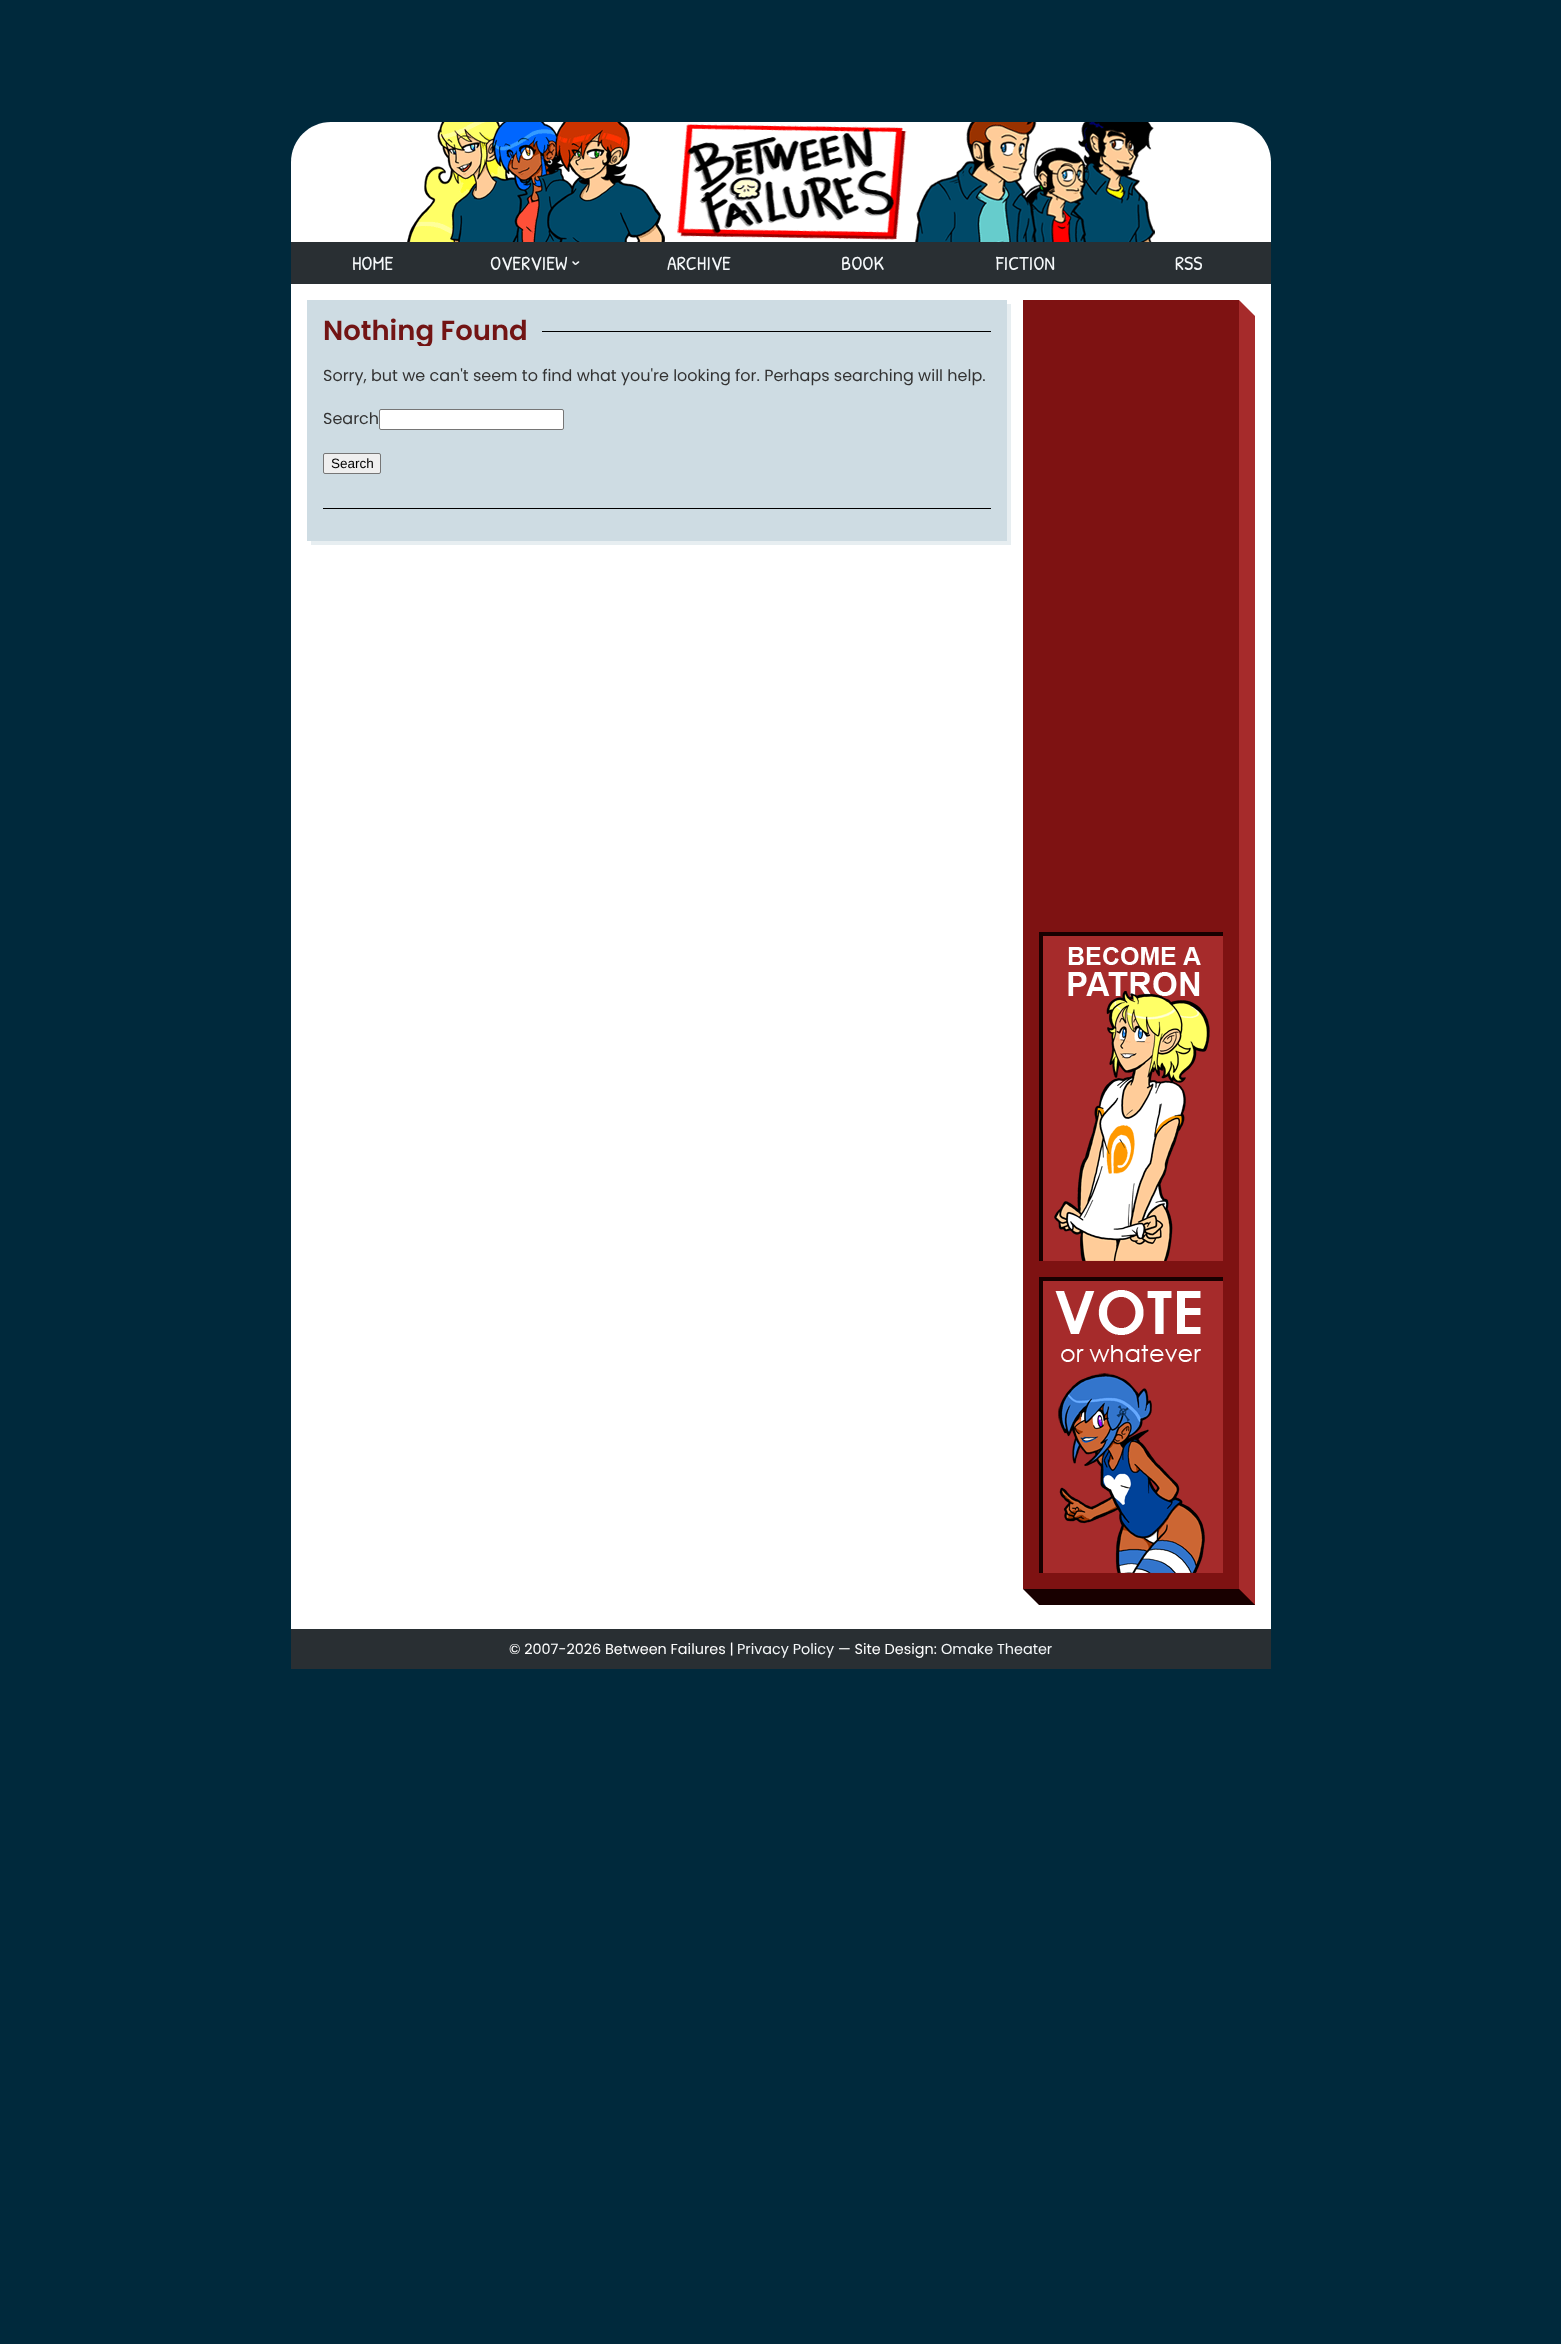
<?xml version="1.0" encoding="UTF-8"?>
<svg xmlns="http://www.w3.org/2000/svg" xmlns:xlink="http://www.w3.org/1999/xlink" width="1561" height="2344">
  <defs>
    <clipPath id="clip1"><rect x="1039" y="932" width="184" height="329" /></clipPath>
    <clipPath id="clip2"><rect x="1039" y="1277" width="184" height="296" /></clipPath>
    <clipPath id="clip3"><rect x="323" y="316" width="668" height="30" /></clipPath>
  </defs>
  <rect width="100%" height="100%" fill="#00293c" />
  <path d="M 331 122 h 900 c 22 0 40 18 40 40 v 1507 h -980 v -1507 c 0 -22 18 -40 40 -40 z" fill="#ffffff" />
  <image x="407" y="122" width="748" height="120" xlink:href="image1.png" />
  <rect x="291" y="242" width="980" height="42" fill="#292f33" />
  <path d="M 311 541 v 4 h 700 v -241 h -4 v 237 z" fill="#e7eef1" />
  <rect x="307" y="300" width="700" height="241" fill="#cedce3" />
  <rect x="542" y="331" width="449" height="1" fill="#000000" />
  <rect x="323" y="508" width="668" height="1" fill="#000000" />
  <rect x="379.5" y="409.5" width="184" height="20" rx="1.5" fill="#ffffff" stroke="#767676" />
  <rect x="323.5" y="453.5" width="57" height="20" rx="1.5" fill="#efefef" stroke="#767676" />
  <rect x="1023" y="300" width="232" height="1305" fill="#7e1212" />
  <path d="M 1255 300 v 1305 l -16 -16 v -1289 z" fill="#a62b2b" />
  <path d="M 1255 1605 h -232 v -16 h 216 z" fill="#180000" />
  <path d="M 1255 300 v 16 l -16 -16 z" fill="#ffffff" />
  <rect x="1043" y="936" width="180" height="325" fill="#a62b2b" />
  <g clip-path="url(#clip1)">
    <path d="M 940 833 h 382 v 527 h -382 z m 103 103 h 184 v 329 h -184 z" fill="#180000" fill-rule="evenodd" />
  </g>
  <image x="1054" y="947" width="156" height="314" xlink:href="image2.png" />
  <rect x="1043" y="1281" width="180" height="292" fill="#a62b2b" />
  <g clip-path="url(#clip2)">
    <path d="M 940 1178 h 382 v 494 h -382 z m 103 103 h 184 v 296 h -184 z" fill="#180000" fill-rule="evenodd" />
  </g>
  <image x="1055" y="1290" width="150" height="283" xlink:href="image3.png" />
  <path d="M 1039 1605 h -16 v -16 z" fill="#ffffff" />
  <rect x="291" y="1629" width="980" height="40" fill="#292f33" />
  <text x="352" y="270" style="font-family: Patrick Hand; font-size: 20px; fill: #f5f8fa">HOME</text>
  <text x="490" y="270" style="font-family: Patrick Hand; font-size: 20px; fill: #f5f8fa">OVERVIEW</text>
  <text x="571" y="260" transform="rotate(90 571 260)" style="font-family: Patrick Hand; font-size: 20px; fill: #f5f8fa">›</text>
  <text x="667" y="270" style="font-family: Patrick Hand; font-size: 20px; fill: #f5f8fa">ARCHIVE</text>
  <text x="841" y="270" style="font-family: Patrick Hand; font-size: 20px; fill: #f5f8fa">BOOK</text>
  <text x="996" y="270" style="font-family: Patrick Hand; font-size: 20px; fill: #f5f8fa">FICTION</text>
  <text x="1175" y="270" style="font-family: Patrick Hand; font-size: 20px; fill: #f5f8fa">RSS</text>
  <g clip-path="url(#clip3)">
    <text x="323" y="340" style="font-family: Poppins; font-size: 27.5px; font-weight: 600; fill: #721414">Nothing Found</text>
  </g>
  <text x="323" y="381" style="font-family: Poppins; font-size: 16px; fill: #333333">Sorry, but we can't seem to find what you're looking for. Perhaps searching will help.</text>
  <text x="323" y="424" style="font-family: Poppins; font-size: 16px; fill: #333333">Search</text>
  <text x="331" y="468" style="font-family: Liberation Sans; font-size: 13.5px; fill: #000000">Search</text>
  <text x="509" y="1654" style="font-family: Poppins; font-size: 14.4px; fill: #ffffff">© 2007-2026 Between Failures |</text>
  <text x="737" y="1654" style="font-family: Poppins; font-size: 14.4px; fill: #f5f8fa">Privacy Policy</text>
  <text x="838" y="1654" style="font-family: Poppins; font-size: 14.4px; fill: #ffffff">— Site Design:</text>
  <text x="941" y="1654" style="font-family: Poppins; font-size: 14.4px; fill: #f5f8fa">Omake Theater</text>
</svg>
